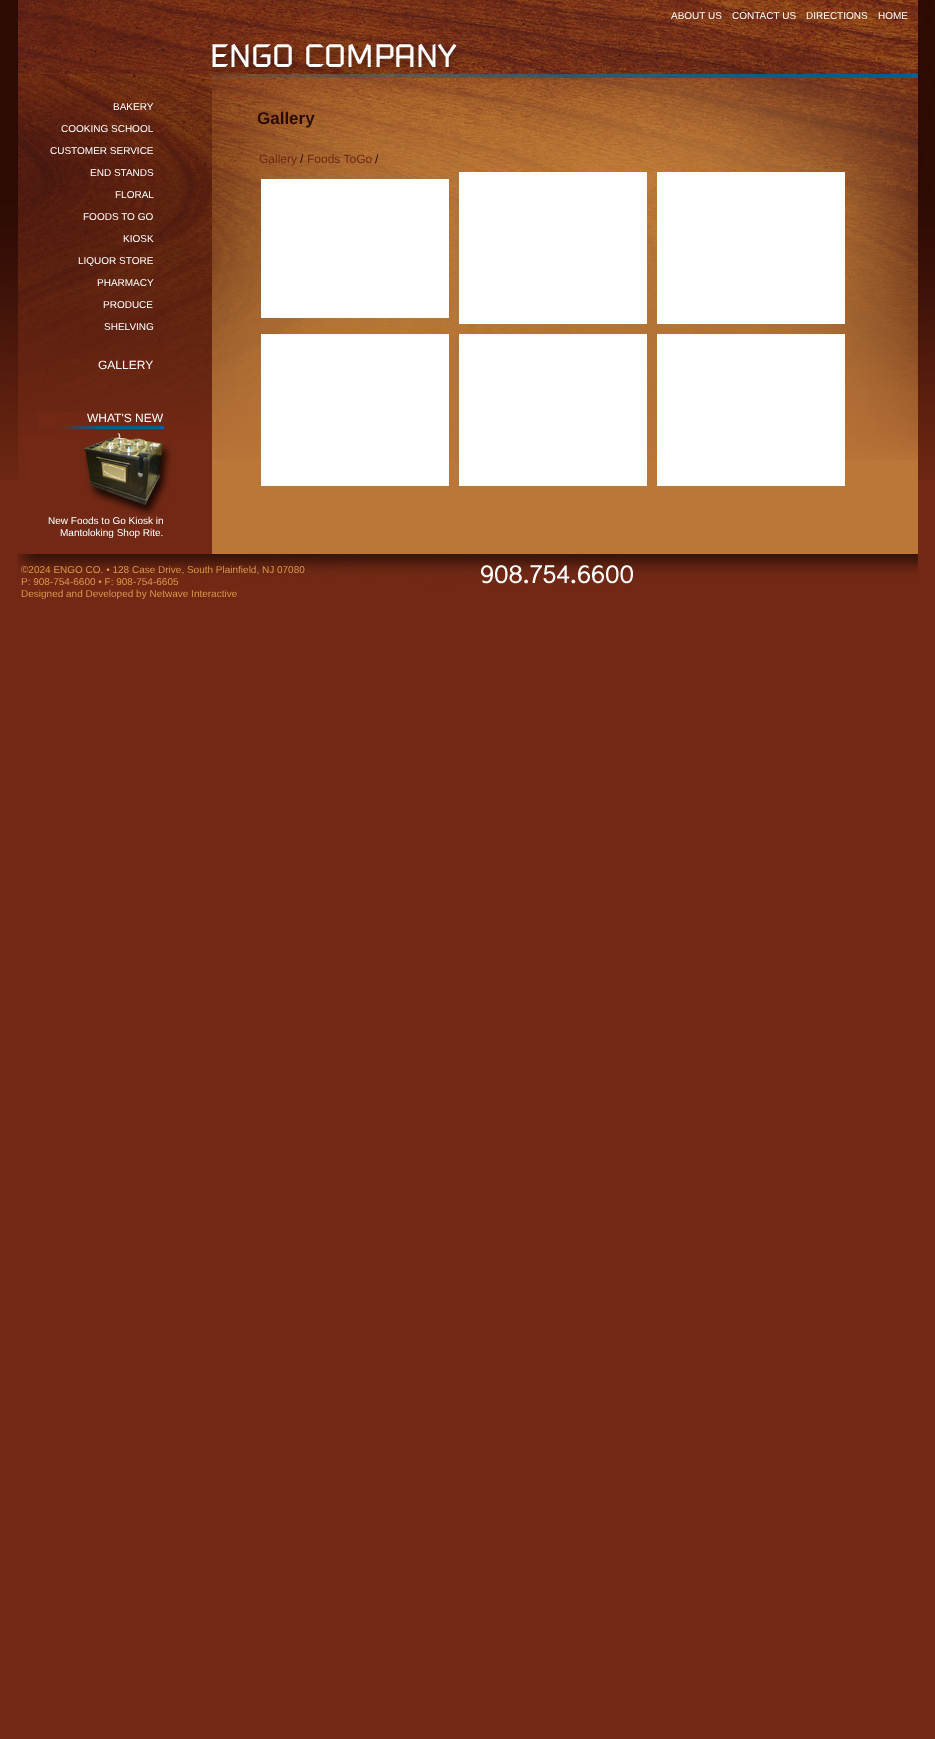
<?xml version="1.0" encoding="UTF-8"?>
<svg xmlns="http://www.w3.org/2000/svg" xmlns:xlink="http://www.w3.org/1999/xlink" width="935" height="1739">
  <rect width="100%" height="100%" fill="#712814" />
  <image x="0" y="0" width="935" height="480" xlink:href="image1.png" />
  <rect x="18" y="437" width="900" height="43" fill="#712814" />
  <image x="18" y="74" width="194" height="363" xlink:href="image2.png" />
  <image x="18" y="0" width="900" height="74" xlink:href="image3.png" />
  <image x="38" y="412" width="126" height="18" xlink:href="image4.png" />
  <image x="84" y="433" width="88" height="82" xlink:href="image5.png" />
  <rect x="212" y="460" width="706" height="94" fill="#bb7639" />
  <image x="212" y="74" width="706" height="386" xlink:href="image6.png" />
  <rect x="261" y="179" width="188" height="139" fill="#ffffff" />
  <rect x="459" y="172" width="188" height="152" fill="#ffffff" />
  <rect x="657" y="172" width="188" height="152" fill="#ffffff" />
  <rect x="261" y="334" width="188" height="152" fill="#ffffff" />
  <rect x="459" y="334" width="188" height="152" fill="#ffffff" />
  <rect x="657" y="334" width="188" height="152" fill="#ffffff" />
  <image x="18" y="554" width="900" height="32" xlink:href="image7.png" />
  <text x="671" y="19" style="font-family: Liberation Sans; font-size: 10px; fill: #ffffff">ABOUT US</text>
  <text x="732" y="19" style="font-family: Liberation Sans; font-size: 10px; fill: #ffffff">CONTACT US</text>
  <text x="806" y="19" style="font-family: Liberation Sans; font-size: 10px; fill: #ffffff">DIRECTIONS</text>
  <text x="878" y="19" style="font-family: Liberation Sans; font-size: 10px; fill: #ffffff">HOME</text>
  <text x="113" y="110" style="font-family: Liberation Sans; font-size: 10px; fill: #ffffff">BAKERY</text>
  <text x="61" y="132" style="font-family: Liberation Sans; font-size: 10px; fill: #ffffff">COOKING SCHOOL</text>
  <text x="50" y="154" style="font-family: Liberation Sans; font-size: 10px; fill: #ffffff">CUSTOMER SERVICE</text>
  <text x="90" y="176" style="font-family: Liberation Sans; font-size: 10px; fill: #ffffff">END STANDS</text>
  <text x="115" y="198" style="font-family: Liberation Sans; font-size: 10px; fill: #ffffff">FLORAL</text>
  <text x="83" y="220" style="font-family: Liberation Sans; font-size: 10px; fill: #ffffff">FOODS TO GO</text>
  <text x="123" y="242" style="font-family: Liberation Sans; font-size: 10px; fill: #ffffff">KIOSK</text>
  <text x="78" y="264" style="font-family: Liberation Sans; font-size: 10px; fill: #ffffff">LIQUOR STORE</text>
  <text x="97" y="286" style="font-family: Liberation Sans; font-size: 10px; fill: #ffffff">PHARMACY</text>
  <text x="103" y="308" style="font-family: Liberation Sans; font-size: 10px; fill: #ffffff">PRODUCE</text>
  <text x="104" y="330" style="font-family: Liberation Sans; font-size: 10px; fill: #ffffff">SHELVING</text>
  <text x="98" y="369" style="font-family: Liberation Sans; font-size: 12px; fill: #ffffff">GALLERY</text>
  <text x="87" y="422" style="font-family: Liberation Sans; font-size: 12px; fill: #ffffff">WHAT'S NEW</text>
  <text x="48" y="524" style="font-family: Liberation Sans; font-size: 10px; fill: #ffffff">New Foods to Go Kiosk in</text>
  <text x="60" y="536" style="font-family: Liberation Sans; font-size: 10px; fill: #ffffff">Mantoloking Shop Rite.</text>
  <text x="257" y="124" style="font-family: Liberation Sans; font-size: 17px; font-weight: bold; fill: #2d0b04">Gallery</text>
  <text x="259" y="163" style="font-family: Liberation Sans; font-size: 12px; fill: #712814">Gallery</text>
  <text x="300" y="163" style="font-family: Liberation Sans; font-size: 12px; fill: #2d0b04">/</text>
  <text x="307" y="163" style="font-family: Liberation Sans; font-size: 12px; fill: #712814">Foods ToGo</text>
  <text x="375" y="163" style="font-family: Liberation Sans; font-size: 12px; fill: #2d0b04">/</text>
  <text x="21" y="573" style="font-family: Liberation Sans; font-size: 10px; fill: #da9748">©2024 ENGO CO. • 128 Case Drive, South Plainfield, NJ 07080</text>
  <text x="21" y="585" style="font-family: Liberation Sans; font-size: 10px; fill: #da9748">P: 908-754-6600 • F: 908-754-6605</text>
  <text x="21" y="597" style="font-family: Liberation Sans; font-size: 10px; fill: #da9748">Designed and Developed by Netwave Interactive</text>
</svg>
